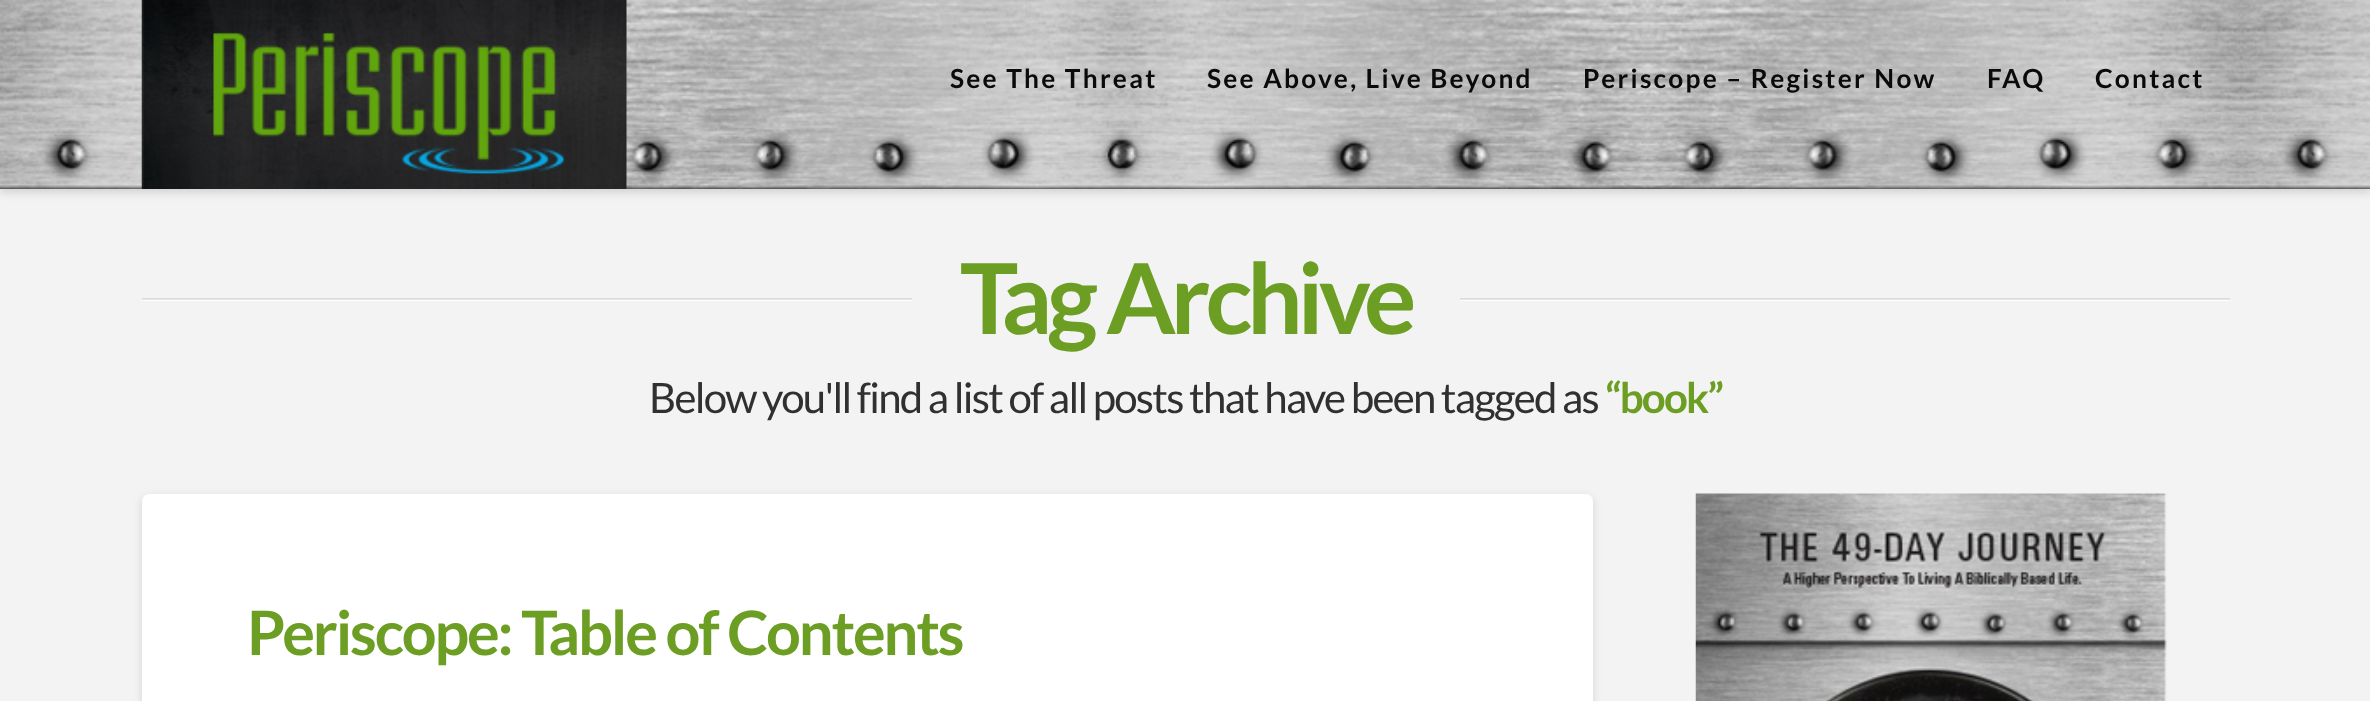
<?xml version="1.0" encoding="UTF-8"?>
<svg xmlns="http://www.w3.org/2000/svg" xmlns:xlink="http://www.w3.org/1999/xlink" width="2370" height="701">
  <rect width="100%" height="100%" fill="#f3f3f3" />
  <rect x="1460" y="298" width="770" height="1" fill="#dbdbdb" />
  <rect x="142" y="298" width="770" height="1" fill="#dbdbdb" />
  <rect y="4" width="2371" height="189" fill="#000000" fill-opacity="0.13" filter="blur(4.5px)" />
  <image x="0" y="0" width="2370" height="189" xlink:href="image1.png" />
  <image x="141" y="0" width="486" height="189" xlink:href="image2.png" />
  <rect x="142" y="300" width="770" height="1" fill="#fdfdfd" />
  <rect x="142" y="299" width="770" height="1" fill="#e4e4e4" />
  <rect x="1460" y="300" width="770" height="1" fill="#fdfdfd" />
  <rect x="1460" y="299" width="770" height="1" fill="#e4e4e4" />
  <rect x="142" y="497" width="1451" height="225" rx="7" fill="#000000" fill-opacity="0.13" filter="blur(4.5px)" />
  <rect x="142" y="494" width="1451" height="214" rx="7" fill="#ffffff" />
  <image x="1695" y="493" width="472" height="208" xlink:href="image3.png" />
  <text x="950" y="88" style="font-family: Lato; font-size: 26.25px; font-weight: bold; letter-spacing: 2.25px; fill: #0a0a0a">See The Threat</text>
  <text x="1207" y="88" style="font-family: Lato; font-size: 26.25px; font-weight: bold; letter-spacing: 2.25px; fill: #0a0a0a">See Above, Live Beyond</text>
  <text x="1583" y="88" style="font-family: Lato; font-size: 26.25px; font-weight: bold; letter-spacing: 2.25px; fill: #0a0a0a">Periscope – Register Now</text>
  <text x="1987" y="88" style="font-family: Lato; font-size: 26.25px; font-weight: bold; letter-spacing: 2.25px; fill: #0a0a0a">FAQ</text>
  <text x="2095" y="88" style="font-family: Lato; font-size: 26.25px; font-weight: bold; letter-spacing: 2.25px; fill: #0a0a0a">Contact</text>
  <text x="960" y="334" style="font-family: Lato; font-size: 98px; font-weight: bold; letter-spacing: -5.25px; fill: #6d9e24">Tag Archive</text>
  <text x="649" y="413" style="font-family: Lato; font-size: 42px; letter-spacing: -1.75px; fill: #303030">Below you'll find a list of all posts that have been tagged as</text>
  <text x="1605" y="413" style="font-family: Lato; font-size: 42px; font-weight: bold; letter-spacing: -1.75px; fill: #6d9e24">“book”</text>
  <text x="247" y="655" style="font-family: Lato; font-size: 61.25px; font-weight: bold; letter-spacing: -2.15px; fill: #6d9e24">Periscope: Table of Contents</text>
</svg>
